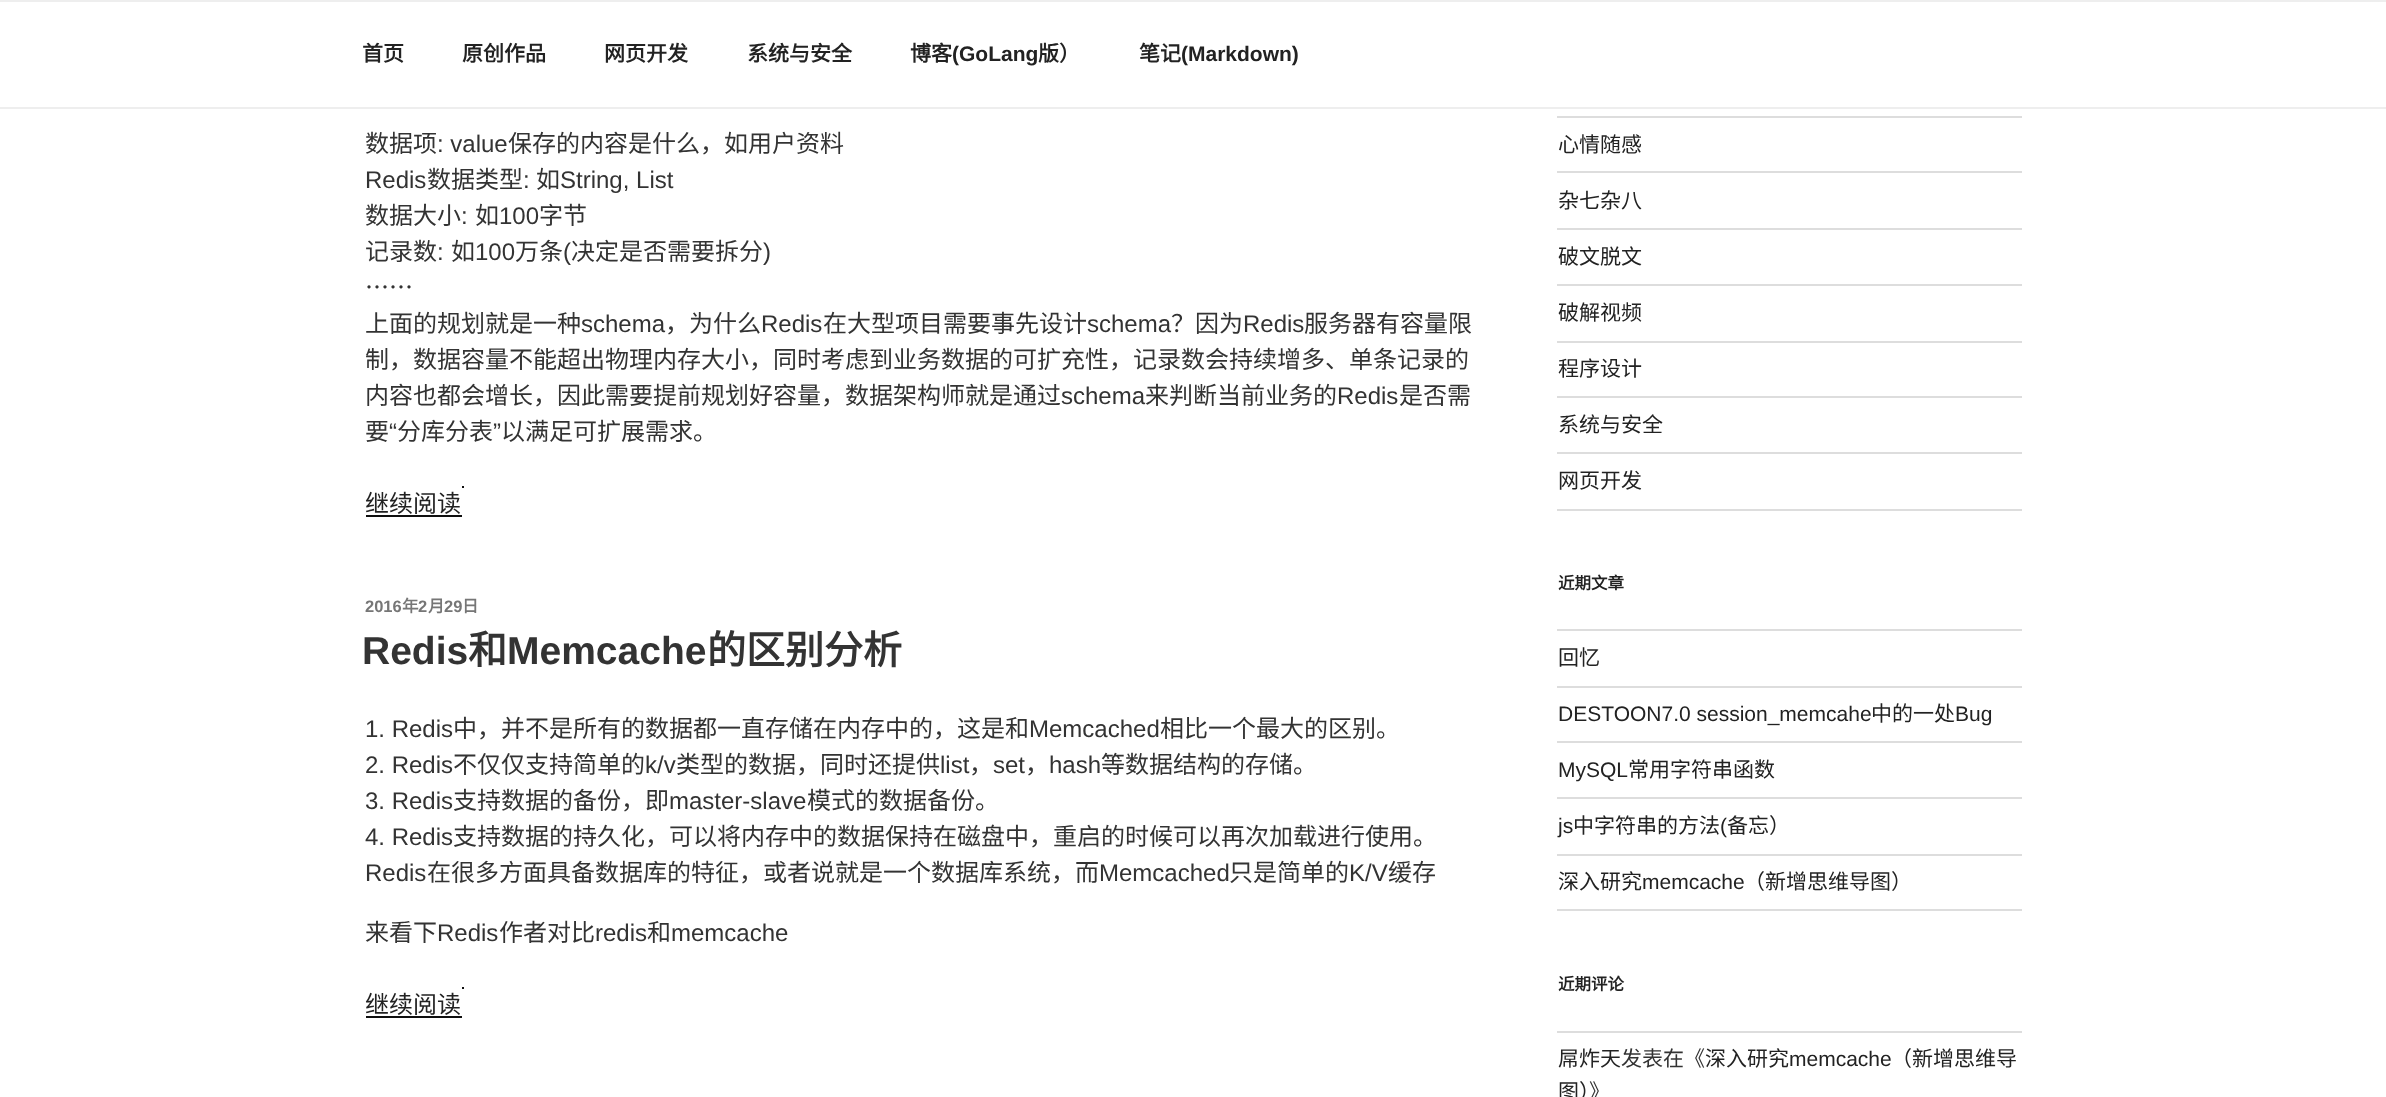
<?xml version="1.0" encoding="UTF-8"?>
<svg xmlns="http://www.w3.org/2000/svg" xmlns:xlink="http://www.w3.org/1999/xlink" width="2386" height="1097">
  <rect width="100%" height="100%" fill="#ffffff" />
  <rect width="2386" height="2" fill="#eeeeee" />
  <rect y="107" width="2386" height="2" fill="#eeeeee" />
  <rect x="366" y="515" width="96" height="2" fill="#0f0f0f" />
  <rect x="462" y="486" width="2" height="2" fill="#0f0f0f" />
  <rect x="366" y="1016" width="96" height="2" fill="#0f0f0f" />
  <rect x="462" y="987" width="2" height="2" fill="#0f0f0f" />
  <rect x="1557" y="116" width="465" height="2" fill="#dddddd" />
  <rect x="1557" y="171" width="465" height="2" fill="#dddddd" />
  <rect x="1557" y="228" width="465" height="2" fill="#dddddd" />
  <rect x="1557" y="284" width="465" height="2" fill="#dddddd" />
  <rect x="1557" y="341" width="465" height="2" fill="#dddddd" />
  <rect x="1557" y="396" width="465" height="2" fill="#dddddd" />
  <rect x="1557" y="452" width="465" height="2" fill="#dddddd" />
  <rect x="1557" y="509" width="465" height="2" fill="#dddddd" />
  <rect x="1557" y="629" width="465" height="2" fill="#dddddd" />
  <rect x="1557" y="686" width="465" height="2" fill="#dddddd" />
  <rect x="1557" y="741" width="465" height="2" fill="#dddddd" />
  <rect x="1557" y="797" width="465" height="2" fill="#dddddd" />
  <rect x="1557" y="854" width="465" height="2" fill="#dddddd" />
  <rect x="1557" y="909" width="465" height="2" fill="#dddddd" />
  <rect x="1557" y="1031" width="465" height="2" fill="#dddddd" />
  <text x="362" y="61" style="font-family: Noto Sans CJK SC; font-size: 21px; font-weight: bold; fill: #222222">首页</text>
  <text x="462" y="61" style="font-family: Noto Sans CJK SC; font-size: 21px; font-weight: bold; fill: #222222">原创作品</text>
  <text x="604" y="61" style="font-family: Noto Sans CJK SC; font-size: 21px; font-weight: bold; fill: #222222">网页开发</text>
  <text x="747" y="61" style="font-family: Noto Sans CJK SC; font-size: 21px; font-weight: bold; fill: #222222">系统与安全</text>
  <text x="910" y="61" style="font-family: Noto Sans CJK SC; font-size: 21px; font-weight: bold; fill: #222222">博客</text>
  <text x="952" y="61" style="font-family: Liberation Sans; font-size: 21px; font-weight: bold; fill: #222222">(GoLang</text>
  <text x="1038" y="61" style="font-family: Noto Sans CJK SC; font-size: 21px; font-weight: bold; fill: #222222">版）</text>
  <text x="1139" y="61" style="font-family: Noto Sans CJK SC; font-size: 21px; font-weight: bold; fill: #222222">笔记</text>
  <text x="1181" y="61" style="font-family: Liberation Sans; font-size: 21px; font-weight: bold; fill: #222222">(Markdown)</text>
  <text x="365" y="152" style="font-family: Noto Sans CJK SC; font-size: 24px; fill: #333333">数据项</text>
  <text x="437" y="152" style="font-family: Liberation Sans; font-size: 24px; fill: #333333">: value</text>
  <text x="508" y="152" style="font-family: Noto Sans CJK SC; font-size: 24px; fill: #333333">保存的内容是什么，如用户资料</text>
  <text x="365" y="188" style="font-family: Liberation Sans; font-size: 24px; fill: #333333">Redis</text>
  <text x="427" y="188" style="font-family: Noto Sans CJK SC; font-size: 24px; fill: #333333">数据类型</text>
  <text x="523" y="188" style="font-family: Liberation Sans; font-size: 24px; fill: #333333">:</text>
  <text x="536" y="188" style="font-family: Noto Sans CJK SC; font-size: 24px; fill: #333333">如</text>
  <text x="560" y="188" style="font-family: Liberation Sans; font-size: 24px; fill: #333333">String, List</text>
  <text x="365" y="224" style="font-family: Noto Sans CJK SC; font-size: 24px; fill: #333333">数据大小</text>
  <text x="461" y="224" style="font-family: Liberation Sans; font-size: 24px; fill: #333333">:</text>
  <text x="475" y="224" style="font-family: Noto Sans CJK SC; font-size: 24px; fill: #333333">如</text>
  <text x="499" y="224" style="font-family: Liberation Sans; font-size: 24px; fill: #333333">100</text>
  <text x="539" y="224" style="font-family: Noto Sans CJK SC; font-size: 24px; fill: #333333">字节</text>
  <text x="365" y="260" style="font-family: Noto Sans CJK SC; font-size: 24px; fill: #333333">记录数</text>
  <text x="437" y="260" style="font-family: Liberation Sans; font-size: 24px; fill: #333333">:</text>
  <text x="451" y="260" style="font-family: Noto Sans CJK SC; font-size: 24px; fill: #333333">如</text>
  <text x="475" y="260" style="font-family: Liberation Sans; font-size: 24px; fill: #333333">100</text>
  <text x="515" y="260" style="font-family: Noto Sans CJK SC; font-size: 24px; fill: #333333">万条</text>
  <text x="563" y="260" style="font-family: Liberation Sans; font-size: 24px; fill: #333333">(</text>
  <text x="571" y="260" style="font-family: Noto Sans CJK SC; font-size: 24px; fill: #333333">决定是否需要拆分</text>
  <text x="763" y="260" style="font-family: Liberation Sans; font-size: 24px; fill: #333333">)</text>
  <text x="365" y="296" style="font-family: Noto Sans CJK SC; font-size: 24px; fill: #333333">⋯⋯</text>
  <text x="365" y="332" style="font-family: Noto Sans CJK SC; font-size: 24px; fill: #333333">上面的规划就是一种</text>
  <text x="581" y="332" style="font-family: Liberation Sans; font-size: 24px; fill: #333333">schema</text>
  <text x="665" y="332" style="font-family: Noto Sans CJK SC; font-size: 24px; fill: #333333">，为什么</text>
  <text x="761" y="332" style="font-family: Liberation Sans; font-size: 24px; fill: #333333">Redis</text>
  <text x="823" y="332" style="font-family: Noto Sans CJK SC; font-size: 24px; fill: #333333">在大型项目需要事先设计</text>
  <text x="1087" y="332" style="font-family: Liberation Sans; font-size: 24px; fill: #333333">schema</text>
  <text x="1171" y="332" style="font-family: Noto Sans CJK SC; font-size: 24px; fill: #333333">？因为</text>
  <text x="1243" y="332" style="font-family: Liberation Sans; font-size: 24px; fill: #333333">Redis</text>
  <text x="1304" y="332" style="font-family: Noto Sans CJK SC; font-size: 24px; fill: #333333">服务器有容量限</text>
  <text x="365" y="368" style="font-family: Noto Sans CJK SC; font-size: 24px; fill: #333333">制，数据容量不能超出物理内存大小，同时考虑到业务数据的可扩充性，记录数会持续增多、单条记录的</text>
  <text x="365" y="404" style="font-family: Noto Sans CJK SC; font-size: 24px; fill: #333333">内容也都会增长，因此需要提前规划好容量，数据架构师就是通过</text>
  <text x="1061" y="404" style="font-family: Liberation Sans; font-size: 24px; fill: #333333">schema</text>
  <text x="1145" y="404" style="font-family: Noto Sans CJK SC; font-size: 24px; fill: #333333">来判断当前业务的</text>
  <text x="1337" y="404" style="font-family: Liberation Sans; font-size: 24px; fill: #333333">Redis</text>
  <text x="1399" y="404" style="font-family: Noto Sans CJK SC; font-size: 24px; fill: #333333">是否需</text>
  <text x="365" y="440" style="font-family: Noto Sans CJK SC; font-size: 24px; fill: #333333">要</text>
  <text x="389" y="440" style="font-family: Liberation Sans; font-size: 24px; fill: #333333">“</text>
  <text x="397" y="440" style="font-family: Noto Sans CJK SC; font-size: 24px; fill: #333333">分库分表</text>
  <text x="493" y="440" style="font-family: Liberation Sans; font-size: 24px; fill: #333333">”</text>
  <text x="501" y="440" style="font-family: Noto Sans CJK SC; font-size: 24px; fill: #333333">以满足可扩展需求。</text>
  <text x="365" y="512" style="font-family: Noto Sans CJK SC; font-size: 24px; fill: #222222">继续阅读</text>
  <text x="365" y="612" style="font-family: Liberation Sans; font-size: 16.5px; font-weight: bold; fill: #767676">2016</text>
  <text x="402" y="612" style="font-family: Noto Sans CJK SC; font-size: 16.5px; font-weight: bold; fill: #767676">年</text>
  <text x="418" y="612" style="font-family: Liberation Sans; font-size: 16.5px; font-weight: bold; fill: #767676">2</text>
  <text x="428" y="612" style="font-family: Noto Sans CJK SC; font-size: 16.5px; font-weight: bold; fill: #767676">月</text>
  <text x="444" y="612" style="font-family: Liberation Sans; font-size: 16.5px; font-weight: bold; fill: #767676">29</text>
  <text x="462" y="612" style="font-family: Noto Sans CJK SC; font-size: 16.5px; font-weight: bold; fill: #767676">日</text>
  <text x="362" y="664" style="font-family: Liberation Sans; font-size: 39px; font-weight: bold; fill: #333333">Redis</text>
  <text x="468" y="664" style="font-family: Noto Sans CJK SC; font-size: 39px; font-weight: bold; fill: #333333">和</text>
  <text x="507" y="664" style="font-family: Liberation Sans; font-size: 39px; font-weight: bold; fill: #333333">Memcache</text>
  <text x="707" y="664" style="font-family: Noto Sans CJK SC; font-size: 39px; font-weight: bold; fill: #333333">的区别分析</text>
  <text x="365" y="737" style="font-family: Liberation Sans; font-size: 24px; fill: #333333">1. Redis</text>
  <text x="453" y="737" style="font-family: Noto Sans CJK SC; font-size: 24px; fill: #333333">中，并不是所有的数据都一直存储在内存中的，这是和</text>
  <text x="1029" y="737" style="font-family: Liberation Sans; font-size: 24px; fill: #333333">Memcached</text>
  <text x="1160" y="737" style="font-family: Noto Sans CJK SC; font-size: 24px; fill: #333333">相比一个最大的区别。</text>
  <text x="365" y="773" style="font-family: Liberation Sans; font-size: 24px; fill: #333333">2. Redis</text>
  <text x="453" y="773" style="font-family: Noto Sans CJK SC; font-size: 24px; fill: #333333">不仅仅支持简单的</text>
  <text x="645" y="773" style="font-family: Liberation Sans; font-size: 24px; fill: #333333">k/v</text>
  <text x="676" y="773" style="font-family: Noto Sans CJK SC; font-size: 24px; fill: #333333">类型的数据，同时还提供</text>
  <text x="940" y="773" style="font-family: Liberation Sans; font-size: 24px; fill: #333333">list</text>
  <text x="969" y="773" style="font-family: Noto Sans CJK SC; font-size: 24px; fill: #333333">，</text>
  <text x="993" y="773" style="font-family: Liberation Sans; font-size: 24px; fill: #333333">set</text>
  <text x="1025" y="773" style="font-family: Noto Sans CJK SC; font-size: 24px; fill: #333333">，</text>
  <text x="1049" y="773" style="font-family: Liberation Sans; font-size: 24px; fill: #333333">hash</text>
  <text x="1101" y="773" style="font-family: Noto Sans CJK SC; font-size: 24px; fill: #333333">等数据结构的存储。</text>
  <text x="365" y="809" style="font-family: Liberation Sans; font-size: 24px; fill: #333333">3. Redis</text>
  <text x="453" y="809" style="font-family: Noto Sans CJK SC; font-size: 24px; fill: #333333">支持数据的备份，即</text>
  <text x="669" y="809" style="font-family: Liberation Sans; font-size: 24px; fill: #333333">master-slave</text>
  <text x="807" y="809" style="font-family: Noto Sans CJK SC; font-size: 24px; fill: #333333">模式的数据备份。</text>
  <text x="365" y="845" style="font-family: Liberation Sans; font-size: 24px; fill: #333333">4. Redis</text>
  <text x="453" y="845" style="font-family: Noto Sans CJK SC; font-size: 24px; fill: #333333">支持数据的持久化，可以将内存中的数据保持在磁盘中，重启的时候可以再次加载进行使用。</text>
  <text x="365" y="881" style="font-family: Liberation Sans; font-size: 24px; fill: #333333">Redis</text>
  <text x="427" y="881" style="font-family: Noto Sans CJK SC; font-size: 24px; fill: #333333">在很多方面具备数据库的特征，或者说就是一个数据库系统，而</text>
  <text x="1099" y="881" style="font-family: Liberation Sans; font-size: 24px; fill: #333333">Memcached</text>
  <text x="1229" y="881" style="font-family: Noto Sans CJK SC; font-size: 24px; fill: #333333">只是简单的</text>
  <text x="1349" y="881" style="font-family: Liberation Sans; font-size: 24px; fill: #333333">K/V</text>
  <text x="1388" y="881" style="font-family: Noto Sans CJK SC; font-size: 24px; fill: #333333">缓存</text>
  <text x="365" y="941" style="font-family: Noto Sans CJK SC; font-size: 24px; fill: #333333">来看下</text>
  <text x="437" y="941" style="font-family: Liberation Sans; font-size: 24px; fill: #333333">Redis</text>
  <text x="499" y="941" style="font-family: Noto Sans CJK SC; font-size: 24px; fill: #333333">作者对比</text>
  <text x="595" y="941" style="font-family: Liberation Sans; font-size: 24px; fill: #333333">redis</text>
  <text x="647" y="941" style="font-family: Noto Sans CJK SC; font-size: 24px; fill: #333333">和</text>
  <text x="671" y="941" style="font-family: Liberation Sans; font-size: 24px; fill: #333333">memcache</text>
  <text x="365" y="1013" style="font-family: Noto Sans CJK SC; font-size: 24px; fill: #222222">继续阅读</text>
  <text x="1558" y="152" style="font-family: Noto Sans CJK SC; font-size: 21px; fill: #222222">心情随感</text>
  <text x="1558" y="208" style="font-family: Noto Sans CJK SC; font-size: 21px; fill: #222222">杂七杂八</text>
  <text x="1558" y="264" style="font-family: Noto Sans CJK SC; font-size: 21px; fill: #222222">破文脱文</text>
  <text x="1558" y="320" style="font-family: Noto Sans CJK SC; font-size: 21px; fill: #222222">破解视频</text>
  <text x="1558" y="376" style="font-family: Noto Sans CJK SC; font-size: 21px; fill: #222222">程序设计</text>
  <text x="1558" y="432" style="font-family: Noto Sans CJK SC; font-size: 21px; fill: #222222">系统与安全</text>
  <text x="1558" y="488" style="font-family: Noto Sans CJK SC; font-size: 21px; fill: #222222">网页开发</text>
  <text x="1558" y="589" style="font-family: Noto Sans CJK SC; font-size: 16.5px; font-weight: bold; fill: #222222">近期文章</text>
  <text x="1558" y="665" style="font-family: Noto Sans CJK SC; font-size: 21px; fill: #222222">回忆</text>
  <text x="1558" y="721" style="font-family: Liberation Sans; font-size: 21px; fill: #222222">DESTOON7.0 session_memcahe</text>
  <text x="1871" y="721" style="font-family: Noto Sans CJK SC; font-size: 21px; fill: #222222">中的一处</text>
  <text x="1955" y="721" style="font-family: Liberation Sans; font-size: 21px; fill: #222222">Bug</text>
  <text x="1558" y="777" style="font-family: Liberation Sans; font-size: 21px; fill: #222222">MySQL</text>
  <text x="1628" y="777" style="font-family: Noto Sans CJK SC; font-size: 21px; fill: #222222">常用字符串函数</text>
  <text x="1558" y="833" style="font-family: Liberation Sans; font-size: 21px; fill: #222222">js</text>
  <text x="1573" y="833" style="font-family: Noto Sans CJK SC; font-size: 21px; fill: #222222">中字符串的方法</text>
  <text x="1720" y="833" style="font-family: Liberation Sans; font-size: 21px; fill: #222222">(</text>
  <text x="1727" y="833" style="font-family: Noto Sans CJK SC; font-size: 21px; fill: #222222">备忘）</text>
  <text x="1558" y="889" style="font-family: Noto Sans CJK SC; font-size: 21px; fill: #222222">深入研究</text>
  <text x="1642" y="889" style="font-family: Liberation Sans; font-size: 21px; fill: #222222">memcache</text>
  <text x="1744" y="889" style="font-family: Noto Sans CJK SC; font-size: 21px; fill: #222222">（新增思维导图）</text>
  <text x="1558" y="990" style="font-family: Noto Sans CJK SC; font-size: 16.5px; font-weight: bold; fill: #222222">近期评论</text>
  <text x="1558" y="1066" style="font-family: Noto Sans CJK SC; font-size: 21px; fill: #222222">屌炸天</text>
  <text x="1621" y="1066" style="font-family: Noto Sans CJK SC; font-size: 21px; fill: #333333">发表在《</text>
  <text x="1705" y="1066" style="font-family: Noto Sans CJK SC; font-size: 21px; fill: #222222">深入研究</text>
  <text x="1789" y="1066" style="font-family: Liberation Sans; font-size: 21px; fill: #222222">memcache</text>
  <text x="1891" y="1066" style="font-family: Noto Sans CJK SC; font-size: 21px; fill: #222222">（新增思维导</text>
  <text x="1558" y="1099" style="font-family: Noto Sans CJK SC; font-size: 21px; fill: #222222">图）</text>
  <text x="1589" y="1099" style="font-family: Noto Sans CJK SC; font-size: 21px; fill: #333333">》</text>
</svg>
